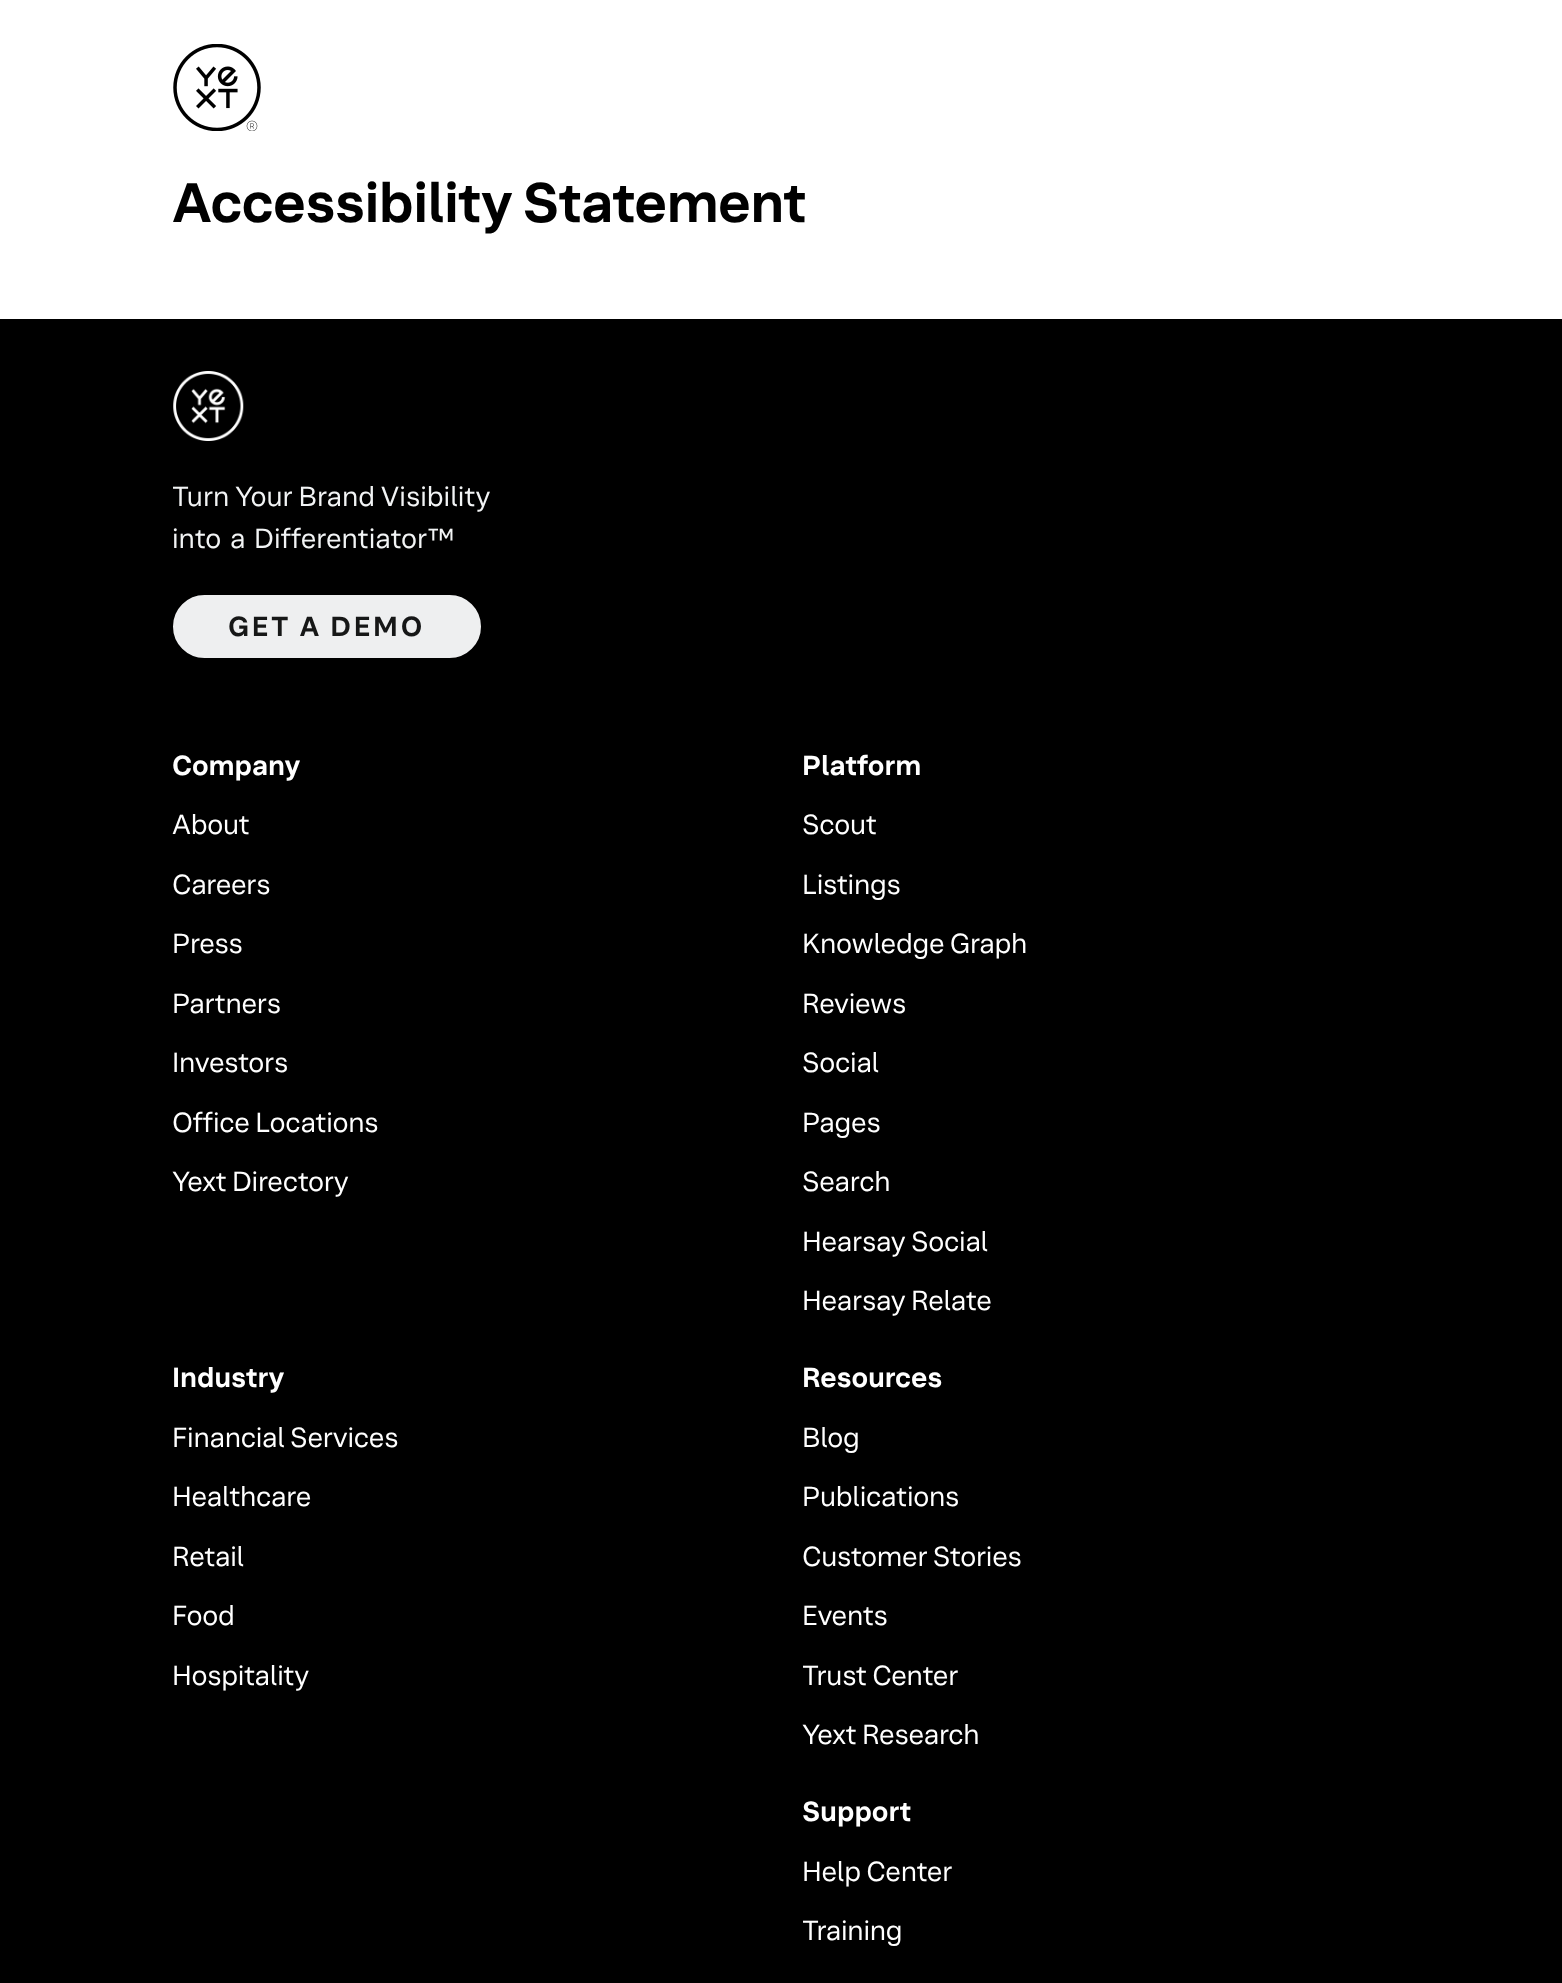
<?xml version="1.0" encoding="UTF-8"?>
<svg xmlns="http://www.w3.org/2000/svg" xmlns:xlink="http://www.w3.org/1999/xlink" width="1562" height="1983">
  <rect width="100%" height="100%" fill="#ffffff" />
  <image x="173" y="44" width="88" height="87" xlink:href="image1.png" />
  <rect y="319" width="1562" height="1664" fill="#000000" />
  <image x="173" y="371" width="71" height="70" xlink:href="image2.png" />
  <rect x="175" y="597" width="304" height="59" rx="29.5" fill="#eeeff0" stroke="#eeeff0" stroke-width="4" />
  <text x="172" y="222" style="font-family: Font; font-size: 56.25px; font-weight: bold; letter-spacing: -0.6px; fill: #000000">Accessibility Statement</text>
  <text x="172" y="506" style="font-family: Font; font-size: 28px; fill: #f2f4f5">Turn Your Brand Visibility</text>
  <text x="172" y="548" word-spacing="3" style="font-family: Font; font-size: 28px; fill: #f2f4f5">into a Differentiator™</text>
  <text x="228" y="636" style="font-family: Font; font-size: 28px; font-weight: bold; letter-spacing: 2.75px; fill: #161717">GET A DEMO</text>
  <text x="172" y="775" style="font-family: Font; font-size: 28px; font-weight: bold; fill: #ffffff">Company</text>
  <text x="172" y="834" style="font-family: Font; font-size: 28px; letter-spacing: -0.25px; fill: #ffffff">About</text>
  <text x="172" y="894" style="font-family: Font; font-size: 28px; letter-spacing: -0.25px; fill: #ffffff">Careers</text>
  <text x="172" y="953" style="font-family: Font; font-size: 28px; letter-spacing: -0.25px; fill: #ffffff">Press</text>
  <text x="172" y="1013" style="font-family: Font; font-size: 28px; letter-spacing: -0.25px; fill: #ffffff">Partners</text>
  <text x="172" y="1072" style="font-family: Font; font-size: 28px; letter-spacing: -0.25px; fill: #ffffff">Investors</text>
  <text x="172" y="1132" style="font-family: Font; font-size: 28px; letter-spacing: -0.25px; fill: #ffffff">Office Locations</text>
  <text x="172" y="1191" style="font-family: Font; font-size: 28px; letter-spacing: -0.25px; fill: #ffffff">Yext Directory</text>
  <text x="802" y="775" style="font-family: Font; font-size: 28px; font-weight: bold; fill: #ffffff">Platform</text>
  <text x="802" y="834" style="font-family: Font; font-size: 28px; letter-spacing: -0.25px; fill: #ffffff">Scout</text>
  <text x="802" y="894" style="font-family: Font; font-size: 28px; letter-spacing: -0.25px; fill: #ffffff">Listings</text>
  <text x="802" y="953" style="font-family: Font; font-size: 28px; letter-spacing: -0.25px; fill: #ffffff">Knowledge Graph</text>
  <text x="802" y="1013" style="font-family: Font; font-size: 28px; letter-spacing: -0.25px; fill: #ffffff">Reviews</text>
  <text x="802" y="1072" style="font-family: Font; font-size: 28px; letter-spacing: -0.25px; fill: #ffffff">Social</text>
  <text x="802" y="1132" style="font-family: Font; font-size: 28px; letter-spacing: -0.25px; fill: #ffffff">Pages</text>
  <text x="802" y="1191" style="font-family: Font; font-size: 28px; letter-spacing: -0.25px; fill: #ffffff">Search</text>
  <text x="802" y="1251" style="font-family: Font; font-size: 28px; letter-spacing: -0.25px; fill: #ffffff">Hearsay Social</text>
  <text x="802" y="1310" style="font-family: Font; font-size: 28px; letter-spacing: -0.25px; fill: #ffffff">Hearsay Relate</text>
  <text x="172" y="1387" style="font-family: Font; font-size: 28px; font-weight: bold; fill: #ffffff">Industry</text>
  <text x="172" y="1447" style="font-family: Font; font-size: 28px; letter-spacing: -0.25px; fill: #ffffff">Financial Services</text>
  <text x="172" y="1506" style="font-family: Font; font-size: 28px; letter-spacing: -0.25px; fill: #ffffff">Healthcare</text>
  <text x="172" y="1566" style="font-family: Font; font-size: 28px; letter-spacing: -0.25px; fill: #ffffff">Retail</text>
  <text x="172" y="1625" style="font-family: Font; font-size: 28px; letter-spacing: -0.25px; fill: #ffffff">Food</text>
  <text x="172" y="1685" style="font-family: Font; font-size: 28px; letter-spacing: -0.25px; fill: #ffffff">Hospitality</text>
  <text x="802" y="1387" style="font-family: Font; font-size: 28px; font-weight: bold; fill: #ffffff">Resources</text>
  <text x="802" y="1447" style="font-family: Font; font-size: 28px; letter-spacing: -0.25px; fill: #ffffff">Blog</text>
  <text x="802" y="1506" style="font-family: Font; font-size: 28px; letter-spacing: -0.25px; fill: #ffffff">Publications</text>
  <text x="802" y="1566" style="font-family: Font; font-size: 28px; letter-spacing: -0.25px; fill: #ffffff">Customer Stories</text>
  <text x="802" y="1625" style="font-family: Font; font-size: 28px; letter-spacing: -0.25px; fill: #ffffff">Events</text>
  <text x="802" y="1685" style="font-family: Font; font-size: 28px; letter-spacing: -0.25px; fill: #ffffff">Trust Center</text>
  <text x="802" y="1744" style="font-family: Font; font-size: 28px; letter-spacing: -0.25px; fill: #ffffff">Yext Research</text>
  <text x="802" y="1821" style="font-family: Font; font-size: 28px; font-weight: bold; fill: #ffffff">Support</text>
  <text x="802" y="1881" style="font-family: Font; font-size: 28px; letter-spacing: -0.25px; fill: #ffffff">Help Center</text>
  <text x="802" y="1940" style="font-family: Font; font-size: 28px; letter-spacing: -0.25px; fill: #ffffff">Training</text>
</svg>
